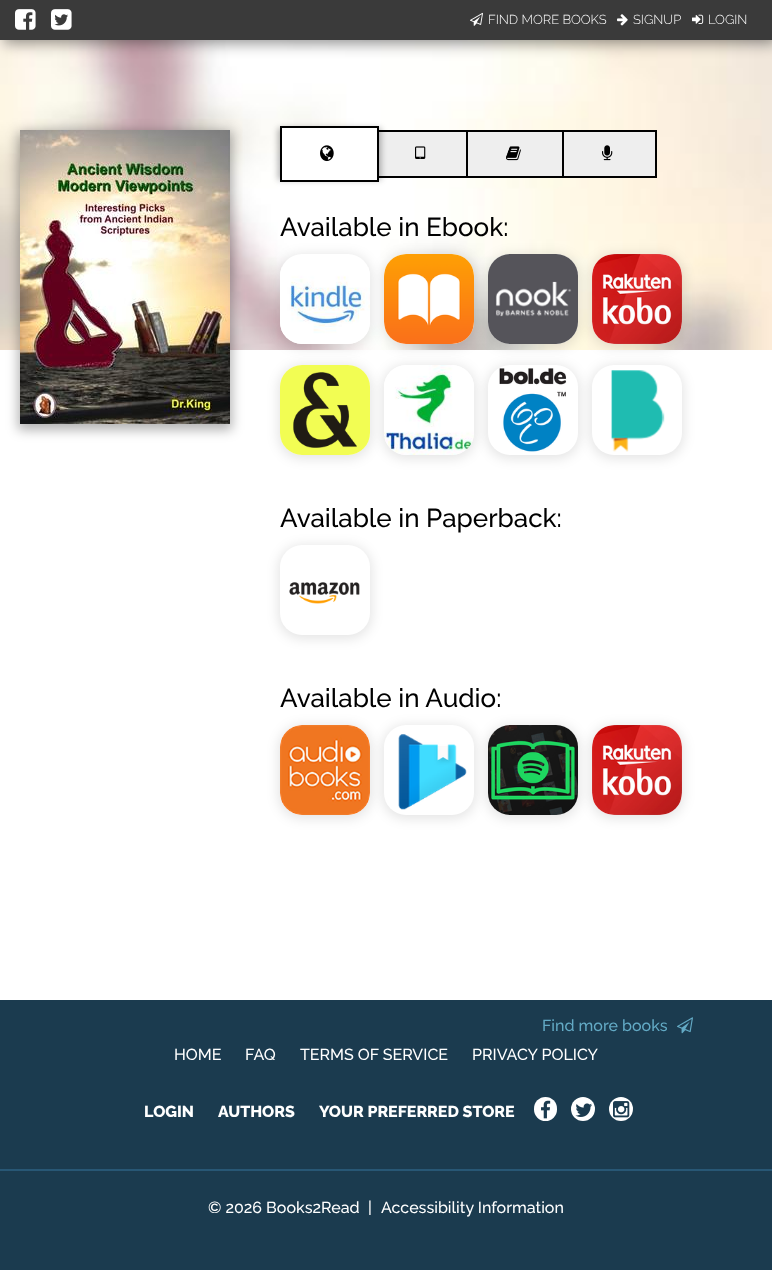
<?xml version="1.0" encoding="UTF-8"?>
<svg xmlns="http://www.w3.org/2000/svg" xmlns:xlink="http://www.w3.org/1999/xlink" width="772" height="1270">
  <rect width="100%" height="100%" fill="#ffffff" />
  <image x="0" y="40" width="772" height="310" xlink:href="image1.png" />
  <rect x="4" y="4" width="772" height="40" fill="#000000" fill-opacity="0.4" filter="blur(7px)" />
  <rect width="772" height="40" fill="#3a3a3a" />
  <image x="15" y="9" width="21" height="21" xlink:href="image2.png" />
  <image x="51" y="9" width="21" height="21" xlink:href="image3.png" />
  <image x="470" y="12" width="13" height="14" xlink:href="image4.png" />
  <image x="617" y="14" width="11" height="12" xlink:href="image5.png" />
  <image x="692" y="14" width="12" height="10" xlink:href="image6.png" />
  <rect x="18" y="132" width="214" height="298" fill="#000000" fill-opacity="0.3" filter="blur(6px)" />
  <image x="20" y="130" width="210" height="294" xlink:href="image7.png" />
  <rect x="379" y="132" width="87" height="44" fill="#eeeeee" />
  <rect x="376" y="131" width="93" height="46" fill="none" stroke="#000000" stroke-width="2" />
  <rect x="278" y="128" width="103" height="52" fill="#000000" fill-opacity="0.3" filter="blur(3px)" />
  <rect x="281" y="127" width="97" height="54" fill="#ffffff" stroke="#000000" stroke-width="2" />
  <image x="320" y="145" width="14" height="17" xlink:href="image8.png" />
  <image x="415" y="146" width="11" height="13" xlink:href="image9.png" />
  <rect x="468" y="132" width="94" height="44" fill="#eeeeee" />
  <rect x="467" y="131" width="98" height="46" fill="none" stroke="#000000" stroke-width="2" />
  <image x="506" y="146" width="15" height="15" xlink:href="image10.png" />
  <rect x="563" y="131" width="93" height="46" fill="#eeeeee" stroke="#000000" stroke-width="2" />
  <image x="602" y="145" width="11" height="16" xlink:href="image11.png" />
  <rect x="278" y="254" width="94" height="94" rx="24" fill="#000000" fill-opacity="0.1" filter="blur(6px)" />
  <rect x="280" y="254" width="90" height="90" rx="22" fill="#ffffff" />
  <image x="280" y="267" width="90" height="77" xlink:href="image14.png" />
  <rect x="382" y="254" width="94" height="94" rx="24" fill="#000000" fill-opacity="0.1" filter="blur(6px)" />
  <rect x="384" y="254" width="90" height="90" rx="22" fill="#ffffff" />
  <image x="384" y="254" width="90" height="90" xlink:href="image12.png" />
  <rect x="486" y="254" width="94" height="94" rx="24" fill="#000000" fill-opacity="0.1" filter="blur(6px)" />
  <rect x="488" y="254" width="90" height="90" rx="22" fill="#ffffff" />
  <image x="488" y="254" width="90" height="90" xlink:href="image13.png" />
  <rect x="590" y="254" width="94" height="94" rx="24" fill="#000000" fill-opacity="0.1" filter="blur(6px)" />
  <rect x="592" y="254" width="90" height="90" rx="22" fill="#ffffff" />
  <image x="592" y="254" width="90" height="90" xlink:href="image15.png" />
  <rect x="278" y="365" width="94" height="94" rx="24" fill="#000000" fill-opacity="0.1" filter="blur(6px)" />
  <rect x="280" y="365" width="90" height="90" rx="22" fill="#ffffff" />
  <image x="280" y="365" width="90" height="90" xlink:href="image16.png" />
  <rect x="382" y="365" width="94" height="94" rx="24" fill="#000000" fill-opacity="0.1" filter="blur(6px)" />
  <rect x="384" y="365" width="90" height="90" rx="22" fill="#ffffff" />
  <image x="384" y="365" width="90" height="90" xlink:href="image17.png" />
  <rect x="486" y="365" width="94" height="94" rx="24" fill="#000000" fill-opacity="0.1" filter="blur(6px)" />
  <rect x="488" y="365" width="90" height="90" rx="22" fill="#ffffff" />
  <rect x="590" y="365" width="94" height="94" rx="24" fill="#000000" fill-opacity="0.1" filter="blur(6px)" />
  <rect x="592" y="365" width="90" height="90" rx="22" fill="#ffffff" />
  <image x="499" y="368" width="68" height="84" xlink:href="image18.png" />
  <image x="611" y="370" width="54" height="82" xlink:href="image19.png" />
  <rect x="278" y="545" width="94" height="94" rx="24" fill="#000000" fill-opacity="0.1" filter="blur(6px)" />
  <rect x="280" y="545" width="90" height="90" rx="22" fill="#ffffff" />
  <image x="289" y="582" width="71" height="22" xlink:href="image20.png" />
  <rect x="278" y="725" width="94" height="94" rx="24" fill="#000000" fill-opacity="0.1" filter="blur(6px)" />
  <rect x="280" y="725" width="90" height="90" rx="22" fill="#ffffff" />
  <image x="280" y="725" width="90" height="90" xlink:href="image21.png" />
  <rect x="382" y="725" width="94" height="94" rx="24" fill="#000000" fill-opacity="0.1" filter="blur(6px)" />
  <rect x="384" y="725" width="90" height="90" rx="22" fill="#ffffff" />
  <rect x="486" y="725" width="94" height="94" rx="24" fill="#000000" fill-opacity="0.1" filter="blur(6px)" />
  <rect x="488" y="725" width="90" height="90" rx="22" fill="#ffffff" />
  <image x="488" y="725" width="90" height="90" xlink:href="image22.png" />
  <rect x="590" y="725" width="94" height="94" rx="24" fill="#000000" fill-opacity="0.1" filter="blur(6px)" />
  <rect x="592" y="725" width="90" height="90" rx="22" fill="#ffffff" />
  <image x="398" y="734" width="69" height="76" xlink:href="image23.png" />
  <image x="592" y="725" width="90" height="90" xlink:href="image24.png" />
  <rect y="1000" width="772" height="270" fill="#1b3b4f" />
  <image x="677" y="1017" width="16" height="17" xlink:href="image25.png" />
  <rect x="534" y="1097" width="23" height="24" rx="11.5" fill="#ffffff" />
  <image x="541" y="1100" width="10" height="19" xlink:href="image26.png" />
  <circle cx="583" cy="1109" r="12" fill="#ffffff" />
  <image x="575" y="1103" width="17" height="14" xlink:href="image27.png" />
  <circle cx="621" cy="1109" r="12" fill="#ffffff" />
  <image x="613" y="1101" width="17" height="17" xlink:href="image28.png" />
  <rect y="1169" width="772" height="2" fill="#285775" />
  <text x="488" y="24" style="font-family: Raleway; font-size: 13px; font-weight: 300; fill: #ffffff">FIND MORE BOOKS</text>
  <text x="633" y="24" style="font-family: Raleway; font-size: 13px; font-weight: 300; fill: #ffffff">SIGNUP</text>
  <text x="708" y="24" style="font-family: Raleway; font-size: 13px; font-weight: 300; fill: #ffffff">LOGIN</text>
  <text x="280" y="236" style="font-family: Raleway; font-size: 26px; font-weight: 500; fill: #000000">Available in Ebook:</text>
  <text x="280" y="527" style="font-family: Raleway; font-size: 26px; font-weight: 500; fill: #000000">Available in Paperback:</text>
  <text x="280" y="707" style="font-family: Raleway; font-size: 26px; font-weight: 500; fill: #000000">Available in Audio:</text>
  <text x="542" y="1031" style="font-family: Raleway; font-size: 16px; font-weight: 500; fill: #63aac5">Find more books</text>
  <text x="174" y="1060" style="font-family: Raleway; font-size: 16px; font-weight: 500; fill: #ffffff">HOME</text>
  <text x="245" y="1060" style="font-family: Raleway; font-size: 16px; font-weight: 500; fill: #ffffff">FAQ</text>
  <text x="300" y="1060" style="font-family: Raleway; font-size: 16px; font-weight: 500; fill: #ffffff">TERMS OF SERVICE</text>
  <text x="472" y="1060" style="font-family: Raleway; font-size: 16px; font-weight: 500; fill: #ffffff">PRIVACY POLICY</text>
  <text x="144" y="1117" style="font-family: Raleway; font-size: 16px; font-weight: 800; fill: #ffffff">LOGIN</text>
  <text x="218" y="1117" style="font-family: Raleway; font-size: 16px; font-weight: 800; fill: #ffffff">AUTHORS</text>
  <text x="319" y="1117" style="font-family: Raleway; font-size: 16px; font-weight: 800; fill: #ffffff">YOUR PREFERRED STORE</text>
  <text x="208" y="1213" style="font-family: Raleway; font-size: 16px; font-weight: 500; fill: #ffffff">© 2026 Books2Read</text>
  <text x="368" y="1213" style="font-family: Raleway; font-size: 16px; font-weight: 500; fill: #ffffff">|</text>
  <text x="381" y="1213" style="font-family: Raleway; font-size: 16px; font-weight: 500; fill: #ffffff">Accessibility Information</text>
</svg>
